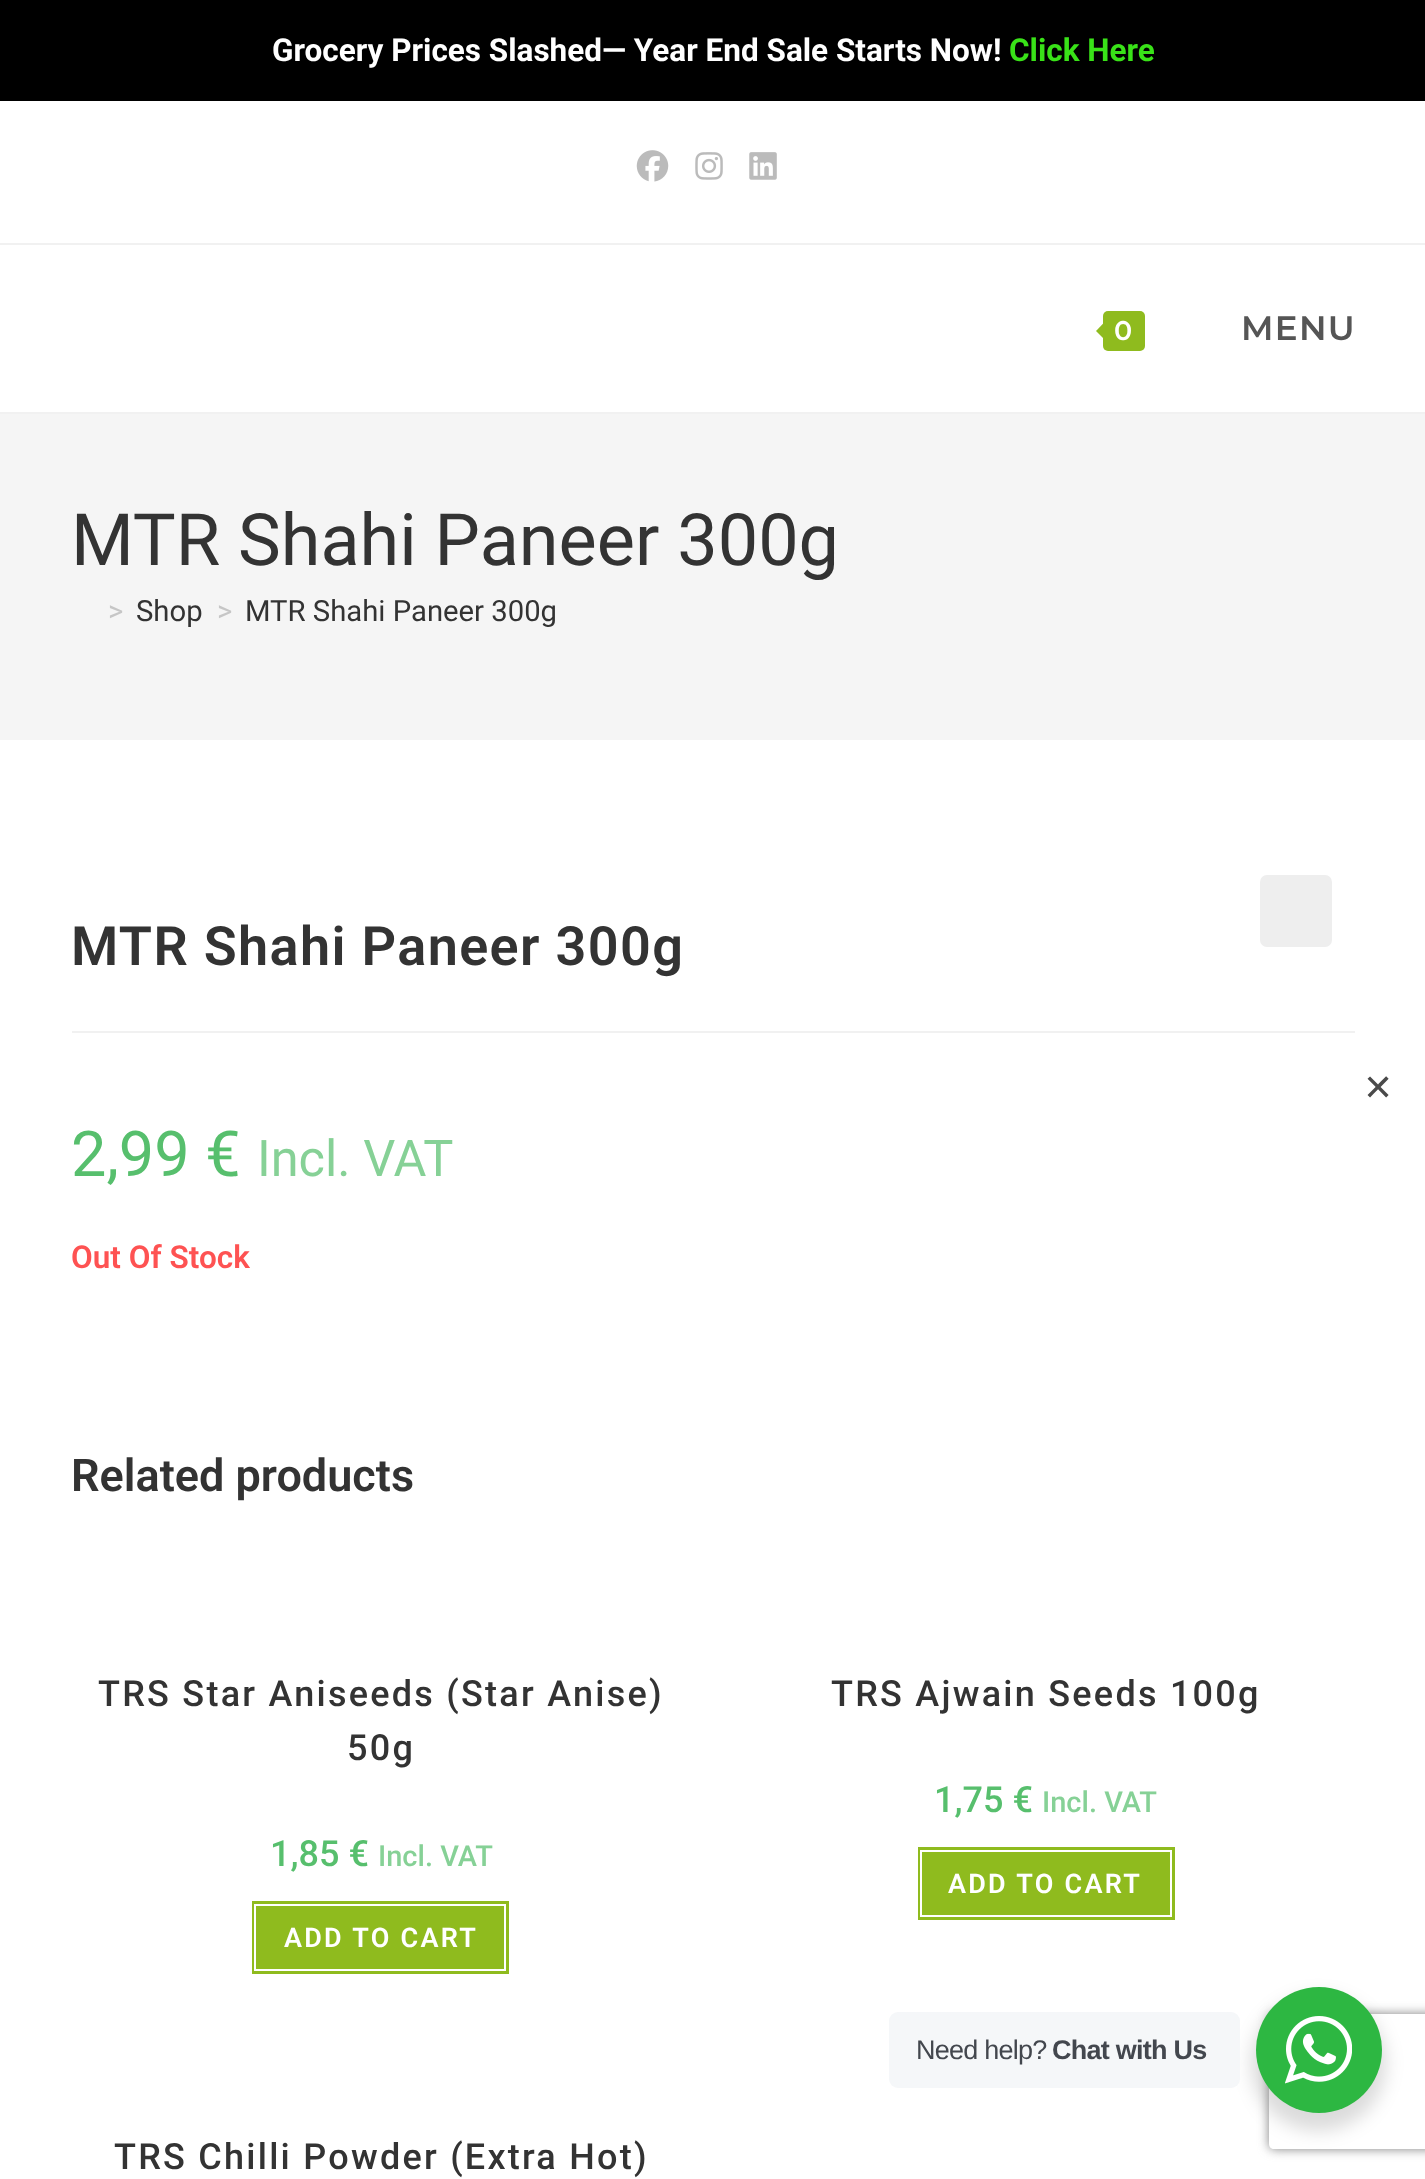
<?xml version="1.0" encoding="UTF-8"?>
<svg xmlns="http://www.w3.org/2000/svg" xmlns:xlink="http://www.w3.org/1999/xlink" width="1425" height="2179">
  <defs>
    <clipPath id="clip1"><path d="M 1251 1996 h 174 v 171 h -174 z m 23 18 h 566 c 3 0 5 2 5 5 v 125 c 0 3 -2 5 -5 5 h -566 c -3 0 -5 -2 -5 -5 v -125 c 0 -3 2 -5 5 -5 z" clip-rule="evenodd" /></clipPath>
  </defs>
  <rect width="100%" height="100%" fill="#ffffff" />
  <rect width="1425" height="101" fill="#000000" />
  <rect y="243" width="1425" height="2" fill="#f1f1f1" />
  <image x="636" y="150" width="33" height="32" xlink:href="image1.png" />
  <image x="695" y="152" width="28" height="28" xlink:href="image2.png" />
  <image x="749" y="152" width="28" height="28" xlink:href="image3.png" />
  <rect y="412" width="1425" height="2" fill="#f1f1f1" />
  <rect x="1103" y="311" width="42" height="40" rx="5" fill="#8fbb1e" />
  <path d="M 1107 319.5 v 22.5 l -11 -11 z" fill="#8fbb1e" />
  <rect y="414" width="1425" height="326" fill="#f5f5f5" />
  <rect x="1260" y="875" width="72" height="72" rx="7" fill="#eeeeee" />
  <rect x="72" y="1031" width="1283" height="2" fill="#f1f1f1" />
  <rect x="252" y="1901" width="257" height="73" fill="#8fbb1e" />
  <rect x="255" y="1905" width="250" height="65" fill="none" stroke="#ffffff" stroke-width="2" />
  <rect x="918" y="1847" width="257" height="73" fill="#8fbb1e" />
  <rect x="921" y="1851" width="250" height="65" fill="none" stroke="#ffffff" stroke-width="2" />
  <rect x="1251" y="1996" width="135" height="135" rx="67.5" fill="#000000" fill-opacity="0.14" filter="blur(9px)" />
  <rect x="889" y="2012" width="351" height="76" rx="9" fill="#f5f7f9" />
  <g clip-path="url(#clip1)">
    <rect x="1269" y="2014" width="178" height="135" rx="5" fill="#808080" filter="blur(5.5px)" />
  </g>
  <circle cx="1319" cy="2050" r="63" fill="#2db742" />
  <image x="1285" y="2016" width="67" height="68" xlink:href="image4.png" />
  <text x="272" y="61" style="font-family: Roboto; font-size: 31.5px; font-weight: bold; fill: #ffffff">Grocery Prices Slashed— Year End Sale Starts Now!</text>
  <text x="1009" y="61" style="font-family: Roboto; font-size: 31.5px; font-weight: bold; fill: #39e218">Click Here</text>
  <text x="1363" y="1100" style="font-family: DejaVu Sans; font-size: 36px; fill: #4a4a4a">✕</text>
  <text x="1114" y="340" style="font-family: Montserrat; font-size: 27px; font-weight: 600; letter-spacing: 1.35px; fill: #ffffff">0</text>
  <text x="1241" y="340" style="font-family: Montserrat; font-size: 34px; font-weight: 600; letter-spacing: 1.35px; fill: #555555">MENU</text>
  <text x="71" y="565" style="font-family: Roboto; font-size: 72px; fill: #333333">MTR Shahi Paneer 300g</text>
  <text x="108" y="621" style="font-family: Roboto; font-size: 29.25px; fill: #c6c6c6">&gt;</text>
  <text x="136" y="621" style="font-family: Roboto; font-size: 29.25px; fill: #333333">Shop</text>
  <text x="217" y="621" style="font-family: Roboto; font-size: 29.25px; fill: #c6c6c6">&gt;</text>
  <text x="245" y="621" style="font-family: Roboto; font-size: 29.25px; fill: #333333">MTR Shahi Paneer 300g</text>
  <text x="71" y="965" style="font-family: Roboto; font-size: 54px; font-weight: 600; letter-spacing: 1.35px; fill: #333333">MTR Shahi Paneer 300g</text>
  <text x="71" y="1176" style="font-family: Roboto; font-size: 63px; fill: #57bf6d">2,99 €</text>
  <text x="257" y="1176" style="font-family: Roboto; font-size: 50.5px; fill: #86d196">Incl. VAT</text>
  <text x="71" y="1268" style="font-family: Roboto; font-size: 31.5px; font-weight: 600; fill: #fe5252">Out Of Stock</text>
  <text x="71" y="1491" style="font-family: Roboto; font-size: 45px; font-weight: 600; fill: #333333">Related products</text>
  <text x="98" y="1706" style="font-family: Roboto; font-size: 36px; font-weight: 500; letter-spacing: 2.25px; fill: #333333">TRS Star Aniseeds (Star Anise)</text>
  <text x="347" y="1760" style="font-family: Roboto; font-size: 36px; font-weight: 500; letter-spacing: 2.25px; fill: #333333">50g</text>
  <text x="270" y="1866" style="font-family: Roboto; font-size: 36px; font-weight: 500; fill: #57bf6d">1,85 €</text>
  <text x="378" y="1866" style="font-family: Roboto; font-size: 29px; font-weight: 500; fill: #86d196">Incl. VAT</text>
  <text x="284" y="1947" style="font-family: Roboto; font-size: 27px; font-weight: 600; letter-spacing: 2.25px; fill: #ffffff">ADD TO CART</text>
  <text x="831" y="1706" style="font-family: Roboto; font-size: 36px; font-weight: 500; letter-spacing: 2.25px; fill: #333333">TRS Ajwain Seeds 100g</text>
  <text x="934" y="1812" style="font-family: Roboto; font-size: 36px; font-weight: 500; fill: #57bf6d">1,75 €</text>
  <text x="1042" y="1812" style="font-family: Roboto; font-size: 29px; font-weight: 500; fill: #86d196">Incl. VAT</text>
  <text x="948" y="1893" style="font-family: Roboto; font-size: 27px; font-weight: 600; letter-spacing: 2.25px; fill: #ffffff">ADD TO CART</text>
  <text x="114" y="2169" style="font-family: Roboto; font-size: 36px; font-weight: 500; letter-spacing: 2.25px; fill: #333333">TRS Chilli Powder (Extra Hot)</text>
  <text x="916" y="2059" style="font-family: Liberation Sans; font-size: 27px; letter-spacing: -0.75px; fill: #43474e">Need help?</text>
  <text x="1052" y="2059" style="font-family: Liberation Sans; font-size: 27px; font-weight: bold; letter-spacing: -0.75px; fill: #43474e">Chat with Us</text>
</svg>
